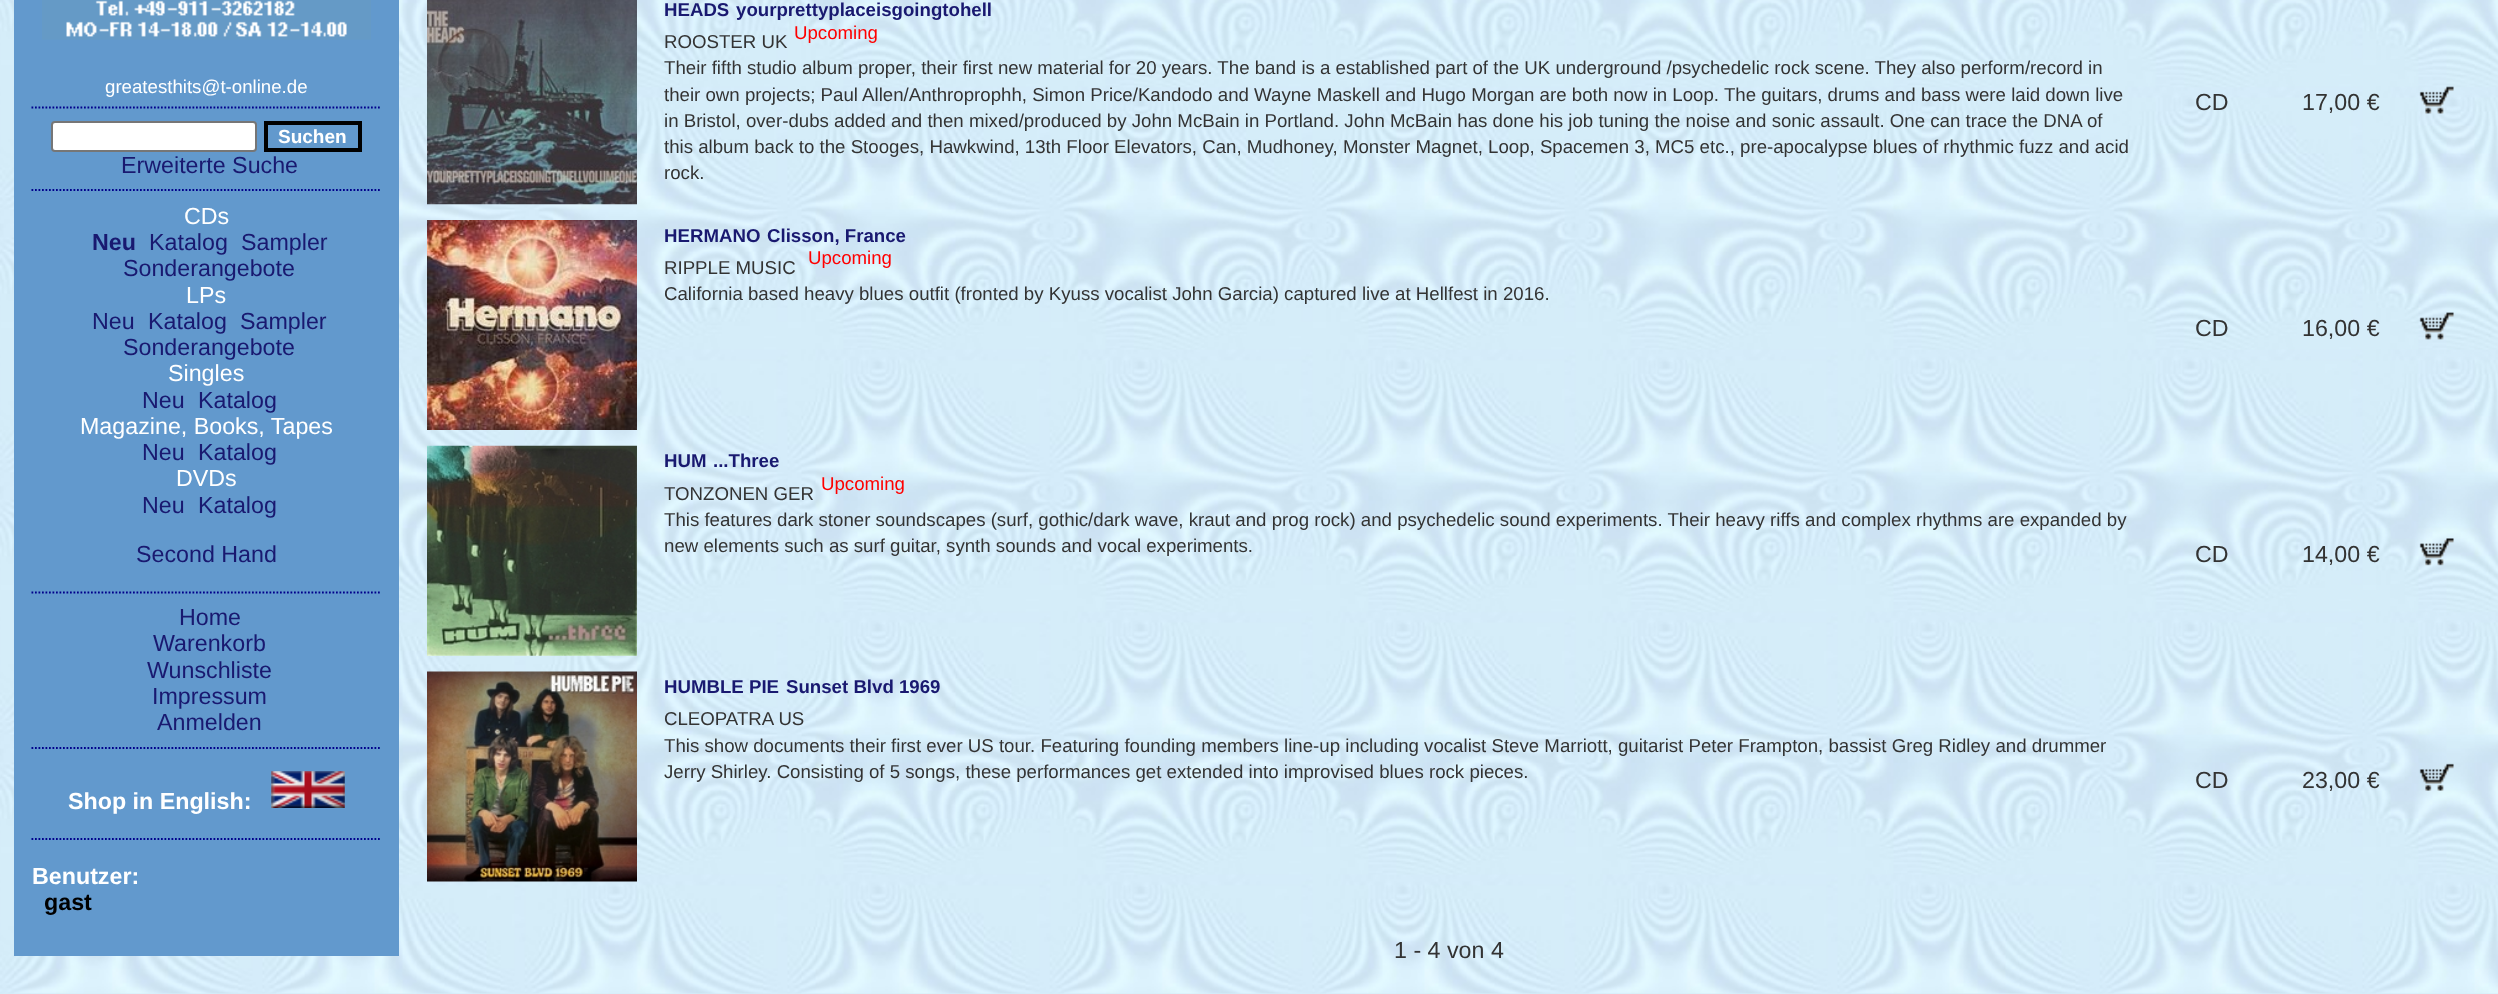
<?xml version="1.0" encoding="UTF-8"?>
<svg xmlns="http://www.w3.org/2000/svg" xmlns:xlink="http://www.w3.org/1999/xlink" width="2498" height="994">
  <rect width="100%" height="100%" fill="#d5edf9" />
  <image x="0" y="0" width="2498" height="994" xlink:href="image1.png" />
  <rect x="14" width="385" height="956" fill="#6299cd" />
  <image x="42" y="0" width="329" height="40" xlink:href="image2.png" />
  <path d="M 31.5 107.5 h 350" fill="none" stroke="#00008b" stroke-width="1.8" stroke-dasharray="1.75 1.75" />
  <rect x="52" y="122" width="204" height="29" rx="3" fill="#ffffff" stroke="#767676" stroke-width="2" />
  <rect x="266" y="123" width="94" height="27" fill="none" stroke="#000000" stroke-width="4" />
  <path d="M 31.5 190 h 350" fill="none" stroke="#00008b" stroke-width="1.8" stroke-dasharray="1.75 1.75" />
  <path d="M 31.5 592.5 h 350" fill="none" stroke="#00008b" stroke-width="1.8" stroke-dasharray="1.75 1.75" />
  <path d="M 31.5 748 h 350" fill="none" stroke="#00008b" stroke-width="1.8" stroke-dasharray="1.75 1.75" />
  <image x="271" y="771" width="74" height="37" xlink:href="image3.png" />
  <path d="M 31.5 839 h 350" fill="none" stroke="#00008b" stroke-width="1.8" stroke-dasharray="1.75 1.75" />
  <image x="427" y="0" width="210" height="205" xlink:href="image4.png" />
  <image x="2419" y="86" width="35" height="28" xlink:href="image5.png" />
  <image x="427" y="220" width="210" height="210" xlink:href="image6.png" />
  <image x="2419" y="312" width="35" height="28" xlink:href="image7.png" />
  <image x="427" y="445" width="210" height="211" xlink:href="image8.png" />
  <image x="2419" y="538" width="35" height="28" xlink:href="image9.png" />
  <image x="427" y="671" width="210" height="211" xlink:href="image10.png" />
  <image x="2419" y="763" width="35" height="28" xlink:href="image11.png" />
  <text x="105" y="93" style="font-family: Liberation Sans; font-size: 18.67px; fill: #ffffff">greatesthits@t-online.de</text>
  <text x="278" y="143" style="font-family: Liberation Sans; font-size: 19px; font-weight: bold; fill: #ffffff">Suchen</text>
  <text x="121" y="173" style="font-family: Liberation Sans; font-size: 23.25px; fill: #191970">Erweiterte Suche</text>
  <text x="184" y="224" style="font-family: Liberation Sans; font-size: 23.25px; fill: #ffffff">CDs</text>
  <text x="92" y="250" style="font-family: Liberation Sans; font-size: 23.25px; font-weight: bold; fill: #191970">Neu</text>
  <text x="149" y="250" style="font-family: Liberation Sans; font-size: 23.25px; fill: #191970">Katalog</text>
  <text x="241" y="250" style="font-family: Liberation Sans; font-size: 23.25px; fill: #191970">Sampler</text>
  <text x="123" y="276" style="font-family: Liberation Sans; font-size: 23.25px; fill: #191970">Sonderangebote</text>
  <text x="186" y="303" style="font-family: Liberation Sans; font-size: 23.25px; fill: #ffffff">LPs</text>
  <text x="92" y="329" style="font-family: Liberation Sans; font-size: 23.25px; fill: #191970">Neu</text>
  <text x="148" y="329" style="font-family: Liberation Sans; font-size: 23.25px; fill: #191970">Katalog</text>
  <text x="240" y="329" style="font-family: Liberation Sans; font-size: 23.25px; fill: #191970">Sampler</text>
  <text x="123" y="355" style="font-family: Liberation Sans; font-size: 23.25px; fill: #191970">Sonderangebote</text>
  <text x="168" y="381" style="font-family: Liberation Sans; font-size: 23.25px; fill: #ffffff">Singles</text>
  <text x="142" y="408" style="font-family: Liberation Sans; font-size: 23.25px; fill: #191970">Neu</text>
  <text x="198" y="408" style="font-family: Liberation Sans; font-size: 23.25px; fill: #191970">Katalog</text>
  <text x="80" y="434" style="font-family: Liberation Sans; font-size: 23.25px; fill: #ffffff">Magazine, Books, Tapes</text>
  <text x="142" y="460" style="font-family: Liberation Sans; font-size: 23.25px; fill: #191970">Neu</text>
  <text x="198" y="460" style="font-family: Liberation Sans; font-size: 23.25px; fill: #191970">Katalog</text>
  <text x="176" y="486" style="font-family: Liberation Sans; font-size: 23.25px; fill: #ffffff">DVDs</text>
  <text x="142" y="513" style="font-family: Liberation Sans; font-size: 23.25px; fill: #191970">Neu</text>
  <text x="198" y="513" style="font-family: Liberation Sans; font-size: 23.25px; fill: #191970">Katalog</text>
  <text x="136" y="562" style="font-family: Liberation Sans; font-size: 23.25px; fill: #191970">Second Hand</text>
  <text x="179" y="625" style="font-family: Liberation Sans; font-size: 23.25px; fill: #191970">Home</text>
  <text x="153" y="651" style="font-family: Liberation Sans; font-size: 23.25px; fill: #191970">Warenkorb</text>
  <text x="147" y="678" style="font-family: Liberation Sans; font-size: 23.25px; fill: #191970">Wunschliste</text>
  <text x="152" y="704" style="font-family: Liberation Sans; font-size: 23.25px; fill: #191970">Impressum</text>
  <text x="157" y="730" style="font-family: Liberation Sans; font-size: 23.25px; fill: #191970">Anmelden</text>
  <text x="68" y="809" style="font-family: Liberation Sans; font-size: 23.25px; font-weight: bold; fill: #ffffff">Shop in English:</text>
  <text x="32" y="884" style="font-family: Liberation Sans; font-size: 23.25px; font-weight: bold; fill: #ffffff">Benutzer:</text>
  <text x="44" y="910" style="font-family: Liberation Sans; font-size: 23.25px; font-weight: bold; fill: #000000">gast</text>
  <text x="664" y="16" style="font-family: Liberation Sans; font-size: 18.67px; font-weight: bold; fill: #191970">HEADS</text>
  <text x="736" y="16" style="font-family: Liberation Sans; font-size: 18.67px; font-weight: bold; fill: #191970">yourprettyplaceisgoingtohell</text>
  <text x="664" y="48" style="font-family: Liberation Sans; font-size: 18.67px; fill: #333333">ROOSTER UK</text>
  <text x="794" y="39" style="font-family: Liberation Sans; font-size: 18.67px; fill: #ff0000">Upcoming</text>
  <text x="664" y="74" style="font-family: Liberation Sans; font-size: 18.67px; fill: #333333">Their fifth studio album proper, their first new material for 20 years. The band is a established part of the UK underground /psychedelic rock scene. They also perform/record in</text>
  <text x="664" y="101" style="font-family: Liberation Sans; font-size: 18.67px; fill: #333333">their own projects; Paul Allen/Anthroprophh, Simon Price/Kandodo and Wayne Maskell and Hugo Morgan are both now in Loop. The guitars, drums and bass were laid down live</text>
  <text x="664" y="127" style="font-family: Liberation Sans; font-size: 18.67px; fill: #333333">in Bristol, over-dubs added and then mixed/produced by John McBain in Portland. John McBain has done his job tuning the noise and sonic assault. One can trace the DNA of</text>
  <text x="664" y="153" style="font-family: Liberation Sans; font-size: 18.67px; fill: #333333">this album back to the Stooges, Hawkwind, 13th Floor Elevators, Can, Mudhoney, Monster Magnet, Loop, Spacemen 3, MC5 etc., pre-apocalypse blues of rhythmic fuzz and acid</text>
  <text x="664" y="179" style="font-family: Liberation Sans; font-size: 18.67px; fill: #333333">rock.</text>
  <text x="2195" y="110" style="font-family: Liberation Sans; font-size: 23.25px; fill: #333333">CD</text>
  <text x="2302" y="110" style="font-family: Liberation Sans; font-size: 23.25px; fill: #333333">17,00 €</text>
  <text x="664" y="242" style="font-family: Liberation Sans; font-size: 18.67px; font-weight: bold; fill: #191970">HERMANO</text>
  <text x="767" y="242" style="font-family: Liberation Sans; font-size: 18.67px; font-weight: bold; fill: #191970">Clisson, France</text>
  <text x="664" y="274" style="font-family: Liberation Sans; font-size: 18.67px; fill: #333333">RIPPLE MUSIC</text>
  <text x="808" y="264" style="font-family: Liberation Sans; font-size: 18.67px; fill: #ff0000">Upcoming</text>
  <text x="664" y="300" style="font-family: Liberation Sans; font-size: 18.67px; fill: #333333">California based heavy blues outfit (fronted by Kyuss vocalist John Garcia) captured live at Hellfest in 2016.</text>
  <text x="2195" y="336" style="font-family: Liberation Sans; font-size: 23.25px; fill: #333333">CD</text>
  <text x="2302" y="336" style="font-family: Liberation Sans; font-size: 23.25px; fill: #333333">16,00 €</text>
  <text x="664" y="467" style="font-family: Liberation Sans; font-size: 18.67px; font-weight: bold; fill: #191970">HUM</text>
  <text x="713" y="467" style="font-family: Liberation Sans; font-size: 18.67px; font-weight: bold; fill: #191970">...Three</text>
  <text x="664" y="500" style="font-family: Liberation Sans; font-size: 18.67px; fill: #333333">TONZONEN GER</text>
  <text x="821" y="490" style="font-family: Liberation Sans; font-size: 18.67px; fill: #ff0000">Upcoming</text>
  <text x="664" y="526" style="font-family: Liberation Sans; font-size: 18.67px; fill: #333333">This features dark stoner soundscapes (surf, gothic/dark wave, kraut and prog rock) and psychedelic sound experiments. Their heavy riffs and complex rhythms are expanded by</text>
  <text x="664" y="552" style="font-family: Liberation Sans; font-size: 18.67px; fill: #333333">new elements such as surf guitar, synth sounds and vocal experiments.</text>
  <text x="2195" y="562" style="font-family: Liberation Sans; font-size: 23.25px; fill: #333333">CD</text>
  <text x="2302" y="562" style="font-family: Liberation Sans; font-size: 23.25px; fill: #333333">14,00 €</text>
  <text x="664" y="693" style="font-family: Liberation Sans; font-size: 18.67px; font-weight: bold; fill: #191970">HUMBLE PIE</text>
  <text x="786" y="693" style="font-family: Liberation Sans; font-size: 18.67px; font-weight: bold; fill: #191970">Sunset Blvd 1969</text>
  <text x="664" y="725" style="font-family: Liberation Sans; font-size: 18.67px; fill: #333333">CLEOPATRA US</text>
  <text x="664" y="752" style="font-family: Liberation Sans; font-size: 18.67px; fill: #333333">This show documents their first ever US tour. Featuring founding members line-up including vocalist Steve Marriott, guitarist Peter Frampton, bassist Greg Ridley and drummer</text>
  <text x="664" y="778" style="font-family: Liberation Sans; font-size: 18.67px; fill: #333333">Jerry Shirley. Consisting of 5 songs, these performances get extended into improvised blues rock pieces.</text>
  <text x="2195" y="788" style="font-family: Liberation Sans; font-size: 23.25px; fill: #333333">CD</text>
  <text x="2302" y="788" style="font-family: Liberation Sans; font-size: 23.25px; fill: #333333">23,00 €</text>
  <text x="1394" y="958" style="font-family: Liberation Sans; font-size: 23.25px; fill: #333333">1 - 4 von 4</text>
</svg>
